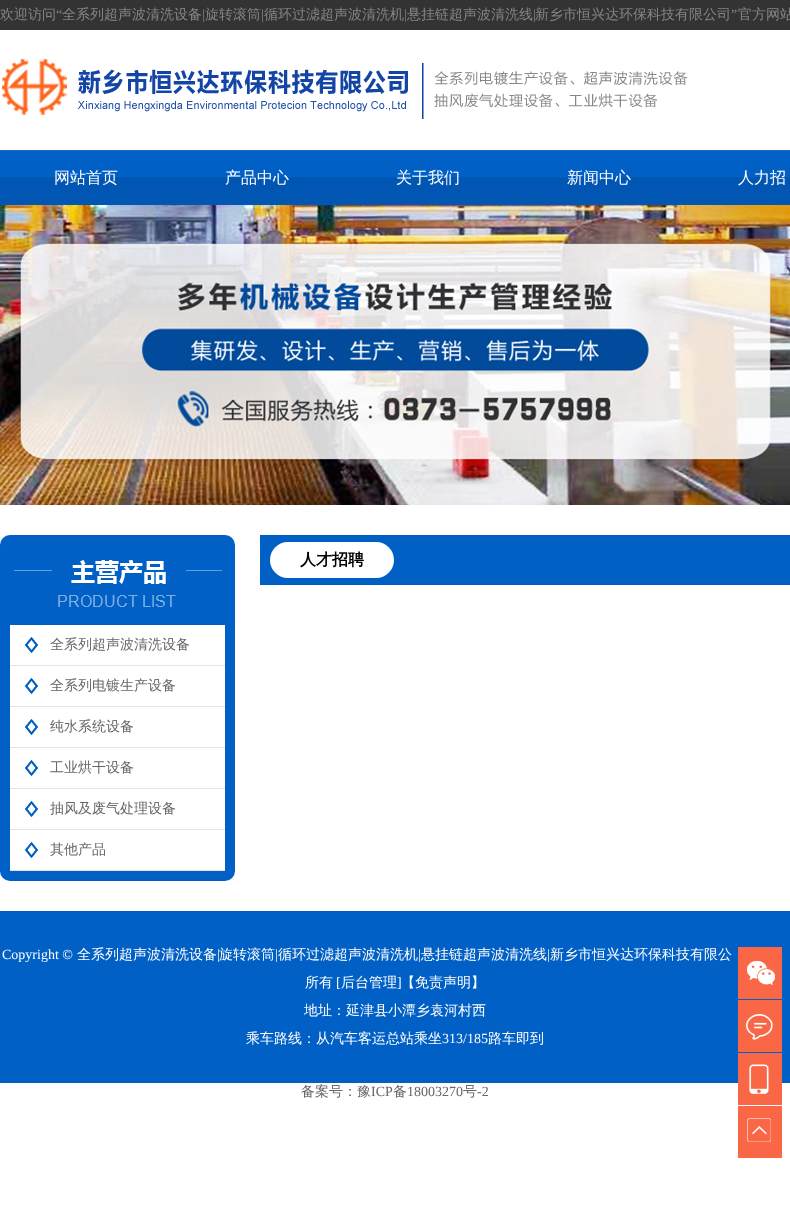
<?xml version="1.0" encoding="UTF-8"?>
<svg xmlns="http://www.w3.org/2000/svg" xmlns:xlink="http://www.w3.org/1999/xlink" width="790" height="1208">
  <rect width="100%" height="100%" fill="#ffffff" />
  <rect width="790" height="30" fill="#333333" />
  <image x="2" y="59" width="686" height="60" xlink:href="image1.png" />
  <image x="0" y="150" width="790" height="55" xlink:href="image2.png" />
  <image x="0" y="205" width="790" height="300" xlink:href="image3.png" />
  <rect x="260" y="535" width="530" height="50" fill="#0060c6" />
  <rect x="270" y="542" width="124" height="36" rx="18" fill="#ffffff" />
  <rect y="535" width="235" height="346" rx="10" fill="#0060c6" />
  <image x="14" y="560" width="208" height="47" xlink:href="image4.png" />
  <rect x="10" y="625" width="215" height="40" fill="#ffffff" />
  <image x="25" y="637" width="13" height="16" xlink:href="image5.png" />
  <rect x="10" y="665" width="215" height="1" fill="#e3e3e3" />
  <rect x="10" y="666" width="215" height="40" fill="#ffffff" />
  <image x="25" y="678" width="13" height="16" xlink:href="image5.png" />
  <rect x="10" y="706" width="215" height="1" fill="#e3e3e3" />
  <rect x="10" y="707" width="215" height="40" fill="#ffffff" />
  <image x="25" y="719" width="13" height="16" xlink:href="image5.png" />
  <rect x="10" y="747" width="215" height="1" fill="#e3e3e3" />
  <rect x="10" y="748" width="215" height="40" fill="#ffffff" />
  <image x="25" y="760" width="13" height="16" xlink:href="image5.png" />
  <rect x="10" y="788" width="215" height="1" fill="#e3e3e3" />
  <rect x="10" y="789" width="215" height="40" fill="#ffffff" />
  <image x="25" y="801" width="13" height="16" xlink:href="image5.png" />
  <rect x="10" y="829" width="215" height="1" fill="#e3e3e3" />
  <rect x="10" y="830" width="215" height="40" fill="#ffffff" />
  <image x="25" y="842" width="13" height="16" xlink:href="image5.png" />
  <rect x="10" y="870" width="215" height="1" fill="#e3e3e3" />
  <rect y="911" width="790" height="172" fill="#0060c6" />
  <image x="738" y="947" width="44" height="52" xlink:href="image6.png" />
  <image x="738" y="1000" width="44" height="52" xlink:href="image7.png" />
  <image x="738" y="1053" width="44" height="52" xlink:href="image8.png" />
  <image x="738" y="1106" width="44" height="52" xlink:href="image9.png" />
  <text x="0" y="19" style="font-family: WenQuanYi Zen Hei; font-size: 14px; font-weight: 500; fill: #858585">欢迎访问</text>
  <text x="56" y="19" style="font-family: Liberation Serif; font-size: 14px; fill: #858585">“</text>
  <text x="62" y="19" style="font-family: WenQuanYi Zen Hei; font-size: 14px; font-weight: 500; fill: #858585">全系列超声波清洗设备</text>
  <text x="202" y="19" style="font-family: Liberation Serif; font-size: 14px; fill: #858585">|</text>
  <text x="205" y="19" style="font-family: WenQuanYi Zen Hei; font-size: 14px; font-weight: 500; fill: #858585">旋转滚筒</text>
  <text x="261" y="19" style="font-family: Liberation Serif; font-size: 14px; fill: #858585">|</text>
  <text x="264" y="19" style="font-family: WenQuanYi Zen Hei; font-size: 14px; font-weight: 500; fill: #858585">循环过滤超声波清洗机</text>
  <text x="404" y="19" style="font-family: Liberation Serif; font-size: 14px; fill: #858585">|</text>
  <text x="407" y="19" style="font-family: WenQuanYi Zen Hei; font-size: 14px; font-weight: 500; fill: #858585">悬挂链超声波清洗线</text>
  <text x="533" y="19" style="font-family: Liberation Serif; font-size: 14px; fill: #858585">|</text>
  <text x="535" y="19" style="font-family: WenQuanYi Zen Hei; font-size: 14px; font-weight: 500; fill: #858585">新乡市恒兴达环保科技有限公司</text>
  <text x="731" y="19" style="font-family: Liberation Serif; font-size: 14px; fill: #858585">”</text>
  <text x="738" y="19" style="font-family: WenQuanYi Zen Hei; font-size: 14px; font-weight: 500; fill: #858585">官方网站</text>
  <text x="54" y="183" style="font-family: WenQuanYi Zen Hei; font-size: 16px; font-weight: 500; fill: #ffffff">网站首页</text>
  <text x="225" y="183" style="font-family: WenQuanYi Zen Hei; font-size: 16px; font-weight: 500; fill: #ffffff">产品中心</text>
  <text x="396" y="183" style="font-family: WenQuanYi Zen Hei; font-size: 16px; font-weight: 500; fill: #ffffff">关于我们</text>
  <text x="567" y="183" style="font-family: WenQuanYi Zen Hei; font-size: 16px; font-weight: 500; fill: #ffffff">新闻中心</text>
  <text x="738" y="183" style="font-family: WenQuanYi Zen Hei; font-size: 16px; font-weight: 500; fill: #ffffff">人力招</text>
  <text x="300" y="565" style="font-family: WenQuanYi Zen Hei; font-size: 16px; font-weight: bold; fill: #000000">人才招聘</text>
  <text x="50" y="649" style="font-family: WenQuanYi Zen Hei; font-size: 14px; font-weight: 500; fill: #666666">全系列超声波清洗设备</text>
  <text x="50" y="690" style="font-family: WenQuanYi Zen Hei; font-size: 14px; font-weight: 500; fill: #666666">全系列电镀生产设备</text>
  <text x="50" y="731" style="font-family: WenQuanYi Zen Hei; font-size: 14px; font-weight: 500; fill: #666666">纯水系统设备</text>
  <text x="50" y="772" style="font-family: WenQuanYi Zen Hei; font-size: 14px; font-weight: 500; fill: #666666">工业烘干设备</text>
  <text x="50" y="813" style="font-family: WenQuanYi Zen Hei; font-size: 14px; font-weight: 500; fill: #666666">抽风及废气处理设备</text>
  <text x="50" y="854" style="font-family: WenQuanYi Zen Hei; font-size: 14px; font-weight: 500; fill: #666666">其他产品</text>
  <text x="2" y="959" style="font-family: Liberation Serif; font-size: 14px; fill: #ffffff">Copyright ©</text>
  <text x="77" y="959" style="font-family: WenQuanYi Zen Hei; font-size: 14px; font-weight: 500; fill: #ffffff">全系列超声波清洗设备</text>
  <text x="217" y="959" style="font-family: Liberation Serif; font-size: 14px; fill: #ffffff">|</text>
  <text x="219" y="959" style="font-family: WenQuanYi Zen Hei; font-size: 14px; font-weight: 500; fill: #ffffff">旋转滚筒</text>
  <text x="275" y="959" style="font-family: Liberation Serif; font-size: 14px; fill: #ffffff">|</text>
  <text x="278" y="959" style="font-family: WenQuanYi Zen Hei; font-size: 14px; font-weight: 500; fill: #ffffff">循环过滤超声波清洗机</text>
  <text x="418" y="959" style="font-family: Liberation Serif; font-size: 14px; fill: #ffffff">|</text>
  <text x="421" y="959" style="font-family: WenQuanYi Zen Hei; font-size: 14px; font-weight: 500; fill: #ffffff">悬挂链超声波清洗线</text>
  <text x="547" y="959" style="font-family: Liberation Serif; font-size: 14px; fill: #ffffff">|</text>
  <text x="550" y="959" style="font-family: WenQuanYi Zen Hei; font-size: 14px; font-weight: 500; fill: #ffffff">新乡市恒兴达环保科技有限公</text>
  <text x="305" y="987" style="font-family: WenQuanYi Zen Hei; font-size: 14px; font-weight: 500; fill: #ffffff">所有</text>
  <text x="336" y="987" style="font-family: Liberation Serif; font-size: 14px; fill: #ffffff">[</text>
  <text x="341" y="987" style="font-family: WenQuanYi Zen Hei; font-size: 14px; font-weight: 500; fill: #ffffff">后台管理</text>
  <text x="397" y="987" style="font-family: Liberation Serif; font-size: 14px; fill: #ffffff">]</text>
  <text x="401" y="987" style="font-family: WenQuanYi Zen Hei; font-size: 14px; font-weight: 500; fill: #ffffff">【免责声明】</text>
  <text x="304" y="1015" style="font-family: WenQuanYi Zen Hei; font-size: 14px; font-weight: 500; fill: #ffffff">地址：延津县小潭乡袁河村西</text>
  <text x="246" y="1043" style="font-family: WenQuanYi Zen Hei; font-size: 14px; font-weight: 500; fill: #ffffff">乘车路线：从汽车客运总站乘坐</text>
  <text x="442" y="1043" style="font-family: Liberation Serif; font-size: 14px; fill: #ffffff">313/185</text>
  <text x="488" y="1043" style="font-family: WenQuanYi Zen Hei; font-size: 14px; font-weight: 500; fill: #ffffff">路车即到</text>
  <text x="301" y="1096" style="font-family: WenQuanYi Zen Hei; font-size: 14px; font-weight: 500; fill: #666666">备案号：豫</text>
  <text x="371" y="1096" style="font-family: Liberation Serif; font-size: 14px; fill: #666666">ICP</text>
  <text x="393" y="1096" style="font-family: WenQuanYi Zen Hei; font-size: 14px; font-weight: 500; fill: #666666">备</text>
  <text x="407" y="1096" style="font-family: Liberation Serif; font-size: 14px; fill: #666666">18003270</text>
  <text x="463" y="1096" style="font-family: WenQuanYi Zen Hei; font-size: 14px; font-weight: 500; fill: #666666">号</text>
  <text x="477" y="1096" style="font-family: Liberation Serif; font-size: 14px; fill: #666666">-2</text>
</svg>
